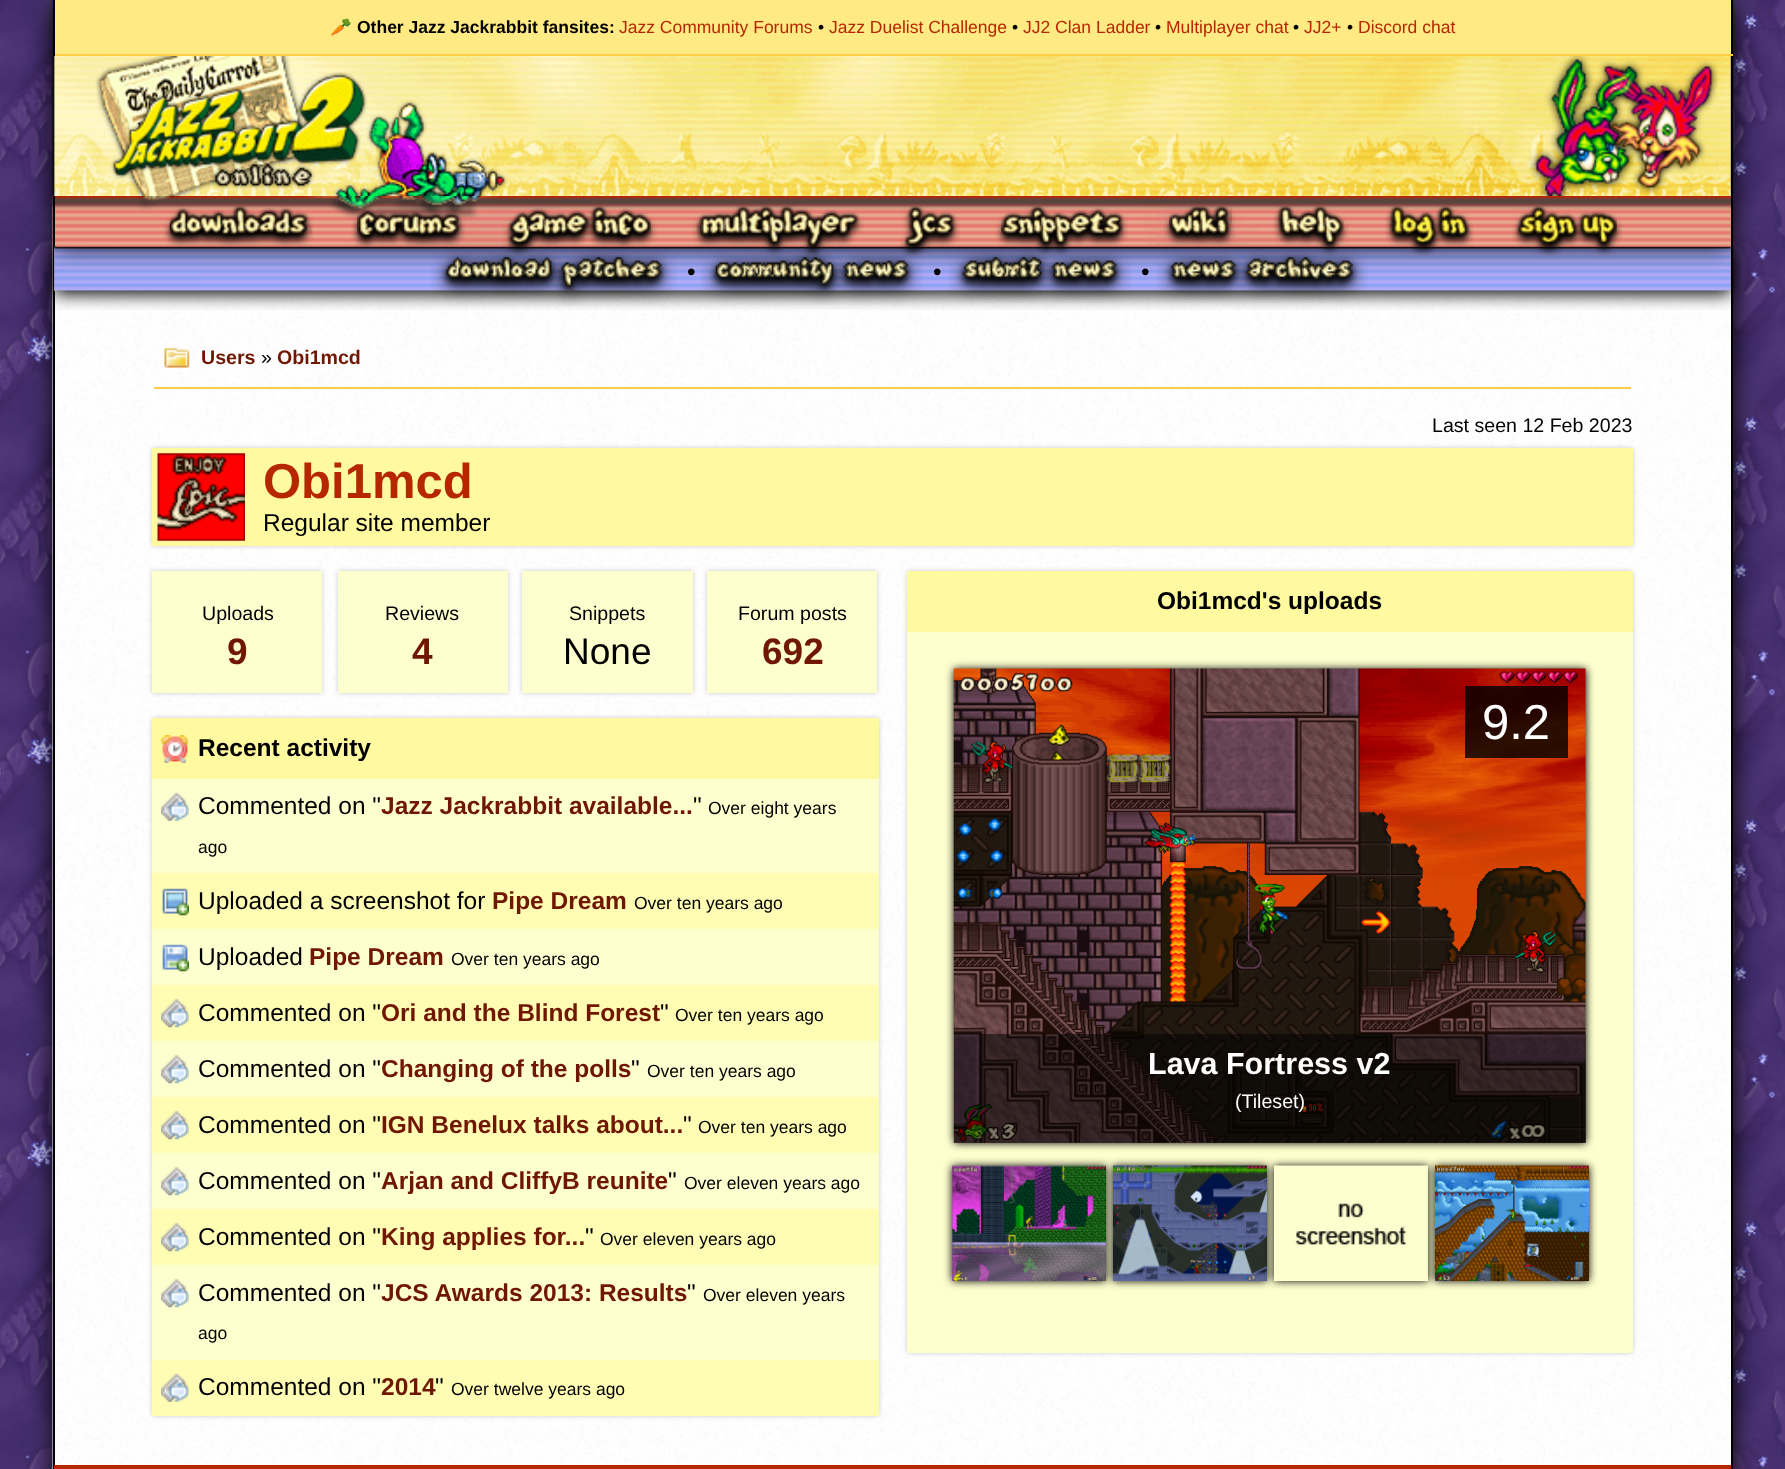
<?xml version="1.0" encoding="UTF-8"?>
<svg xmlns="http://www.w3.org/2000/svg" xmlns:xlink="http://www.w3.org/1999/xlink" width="1785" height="1469">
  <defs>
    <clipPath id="clip1"><path d="M 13 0 h 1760 v 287 h -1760 z m 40 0 h 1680 v 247 h -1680 z" clip-rule="evenodd" /></clipPath>
  </defs>
  <rect width="100%" height="100%" fill="#ffffff" />
  <image x="0" y="0" width="1785" height="1469" xlink:href="image1.png" />
  <rect x="53" y="247" width="1680" height="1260" fill="#000000" filter="blur(13px)" />
  <image x="52" y="246" width="1679" height="1223" xlink:href="image14.png" />
  <rect x="1731" y="247" width="2" height="1222" fill="#000000" />
  <rect x="53" y="247" width="2" height="1222" fill="#000000" />
  <rect x="54" y="247" width="1677" height="44" fill="#fffcb4" />
  <image x="40" y="234" width="1705" height="76" xlink:href="image15.png" />
  <image x="431" y="248" width="246" height="58" xlink:href="image16.png" />
  <image x="700" y="248" width="224" height="57" xlink:href="image17.png" />
  <image x="948" y="248" width="184" height="55" xlink:href="image18.png" />
  <image x="1156" y="248" width="212" height="55" xlink:href="image19.png" />
  <g clip-path="url(#clip1)">
    <rect x="53" width="1680" height="247" fill="#000000" filter="blur(13px)" />
  </g>
  <rect x="1731" width="2" height="247" fill="#000000" />
  <image x="52" y="56" width="1679" height="140" xlink:href="image2.png" />
  <rect x="55" width="1676" height="54" fill="#ffea84" />
  <rect x="53" y="54" width="1680" height="2" fill="#ffcd47" />
  <rect x="53" width="2" height="56" fill="#000000" />
  <image x="52" y="196" width="1679" height="51" xlink:href="image3.png" />
  <rect x="53" y="196" width="2" height="51" fill="#000000" />
  <image x="163" y="206" width="151" height="41" xlink:href="image4.png" />
  <image x="351" y="208" width="115" height="39" xlink:href="image5.png" />
  <image x="503" y="206" width="154" height="50" xlink:href="image6.png" />
  <image x="692" y="206" width="172" height="52" xlink:href="image7.png" />
  <image x="900" y="206" width="60" height="52" xlink:href="image8.png" />
  <image x="995" y="206" width="133" height="50" xlink:href="image9.png" />
  <image x="1163" y="206" width="73" height="41" xlink:href="image10.png" />
  <image x="1273" y="206" width="76" height="50" xlink:href="image11.png" />
  <image x="1385" y="206" width="89" height="51" xlink:href="image12.png" />
  <image x="1512" y="206" width="111" height="51" xlink:href="image13.png" />
  <image x="164" y="347" width="26" height="21" xlink:href="image20.png" />
  <rect x="154" y="387" width="1477" height="2" fill="#ffcd47" />
  <rect x="152" y="448" width="1481" height="98" fill="#cccccc" filter="blur(2.5px)" />
  <rect x="152" y="448" width="1481" height="98" fill="#fff9a0" />
  <image x="157" y="453" width="88" height="88" xlink:href="image21.png" />
  <rect x="152" y="571" width="170" height="122" fill="#cccccc" filter="blur(2.5px)" />
  <rect x="152" y="571" width="170" height="122" fill="#feffcf" />
  <rect x="338" y="571" width="170" height="122" fill="#cccccc" filter="blur(2.5px)" />
  <rect x="338" y="571" width="170" height="122" fill="#feffcf" />
  <rect x="522" y="571" width="171" height="122" fill="#cccccc" filter="blur(2.5px)" />
  <rect x="522" y="571" width="171" height="122" fill="#feffcf" />
  <rect x="707" y="571" width="170" height="122" fill="#cccccc" filter="blur(2.5px)" />
  <rect x="707" y="571" width="170" height="122" fill="#feffcf" />
  <rect x="152" y="718" width="727" height="698" rx="4" fill="#cccccc" filter="blur(2.5px)" />
  <rect x="152" y="779" width="727" height="581" fill="#feffcf" />
  <rect x="152" y="718" width="727" height="61" fill="#fff9a0" />
  <image x="161" y="735" width="28" height="28" xlink:href="image22.png" />
  <image x="161" y="792" width="28" height="29" xlink:href="image23.png" />
  <rect x="152" y="873" width="727" height="56" fill="#fffcb4" />
  <image x="162" y="888" width="27" height="28" xlink:href="image24.png" />
  <image x="162" y="944" width="27" height="28" xlink:href="image25.png" />
  <rect x="152" y="985" width="727" height="56" fill="#fffcb4" />
  <image x="161" y="999" width="28" height="29" xlink:href="image26.png" />
  <image x="161" y="1055" width="28" height="29" xlink:href="image27.png" />
  <rect x="152" y="1097" width="727" height="56" fill="#fffcb4" />
  <image x="161" y="1111" width="28" height="29" xlink:href="image26.png" />
  <image x="161" y="1167" width="28" height="29" xlink:href="image27.png" />
  <rect x="152" y="1209" width="727" height="56" fill="#fffcb4" />
  <image x="161" y="1223" width="28" height="29" xlink:href="image26.png" />
  <image x="161" y="1279" width="28" height="29" xlink:href="image27.png" />
  <rect x="152" y="1360" width="727" height="56" fill="#fffcb4" />
  <image x="161" y="1373" width="28" height="29" xlink:href="image28.png" />
  <rect x="907" y="571" width="726" height="782" rx="4" fill="#cccccc" filter="blur(2.5px)" />
  <rect x="907" y="571" width="726" height="782" rx="4" fill="#feffcf" />
  <rect x="907" y="571" width="726" height="61" fill="#fff9a0" />
  <rect x="954" y="669" width="632" height="474" fill="#000000" filter="blur(4.5px)" />
  <image x="953" y="668" width="633" height="475" xlink:href="image29.png" />
  <rect x="1465" y="686" width="103" height="72" fill="#000000" fill-opacity="0.8" />
  <rect x="954" y="1034" width="632" height="109" fill="#000000" fill-opacity="0.5" />
  <rect x="952" y="1166" width="154" height="115" fill="#000000" filter="blur(4.5px)" />
  <image x="952" y="1165" width="154" height="116" xlink:href="image30.png" />
  <rect x="1113" y="1166" width="154" height="115" fill="#000000" filter="blur(4.5px)" />
  <image x="1113" y="1165" width="154" height="116" xlink:href="image31.png" />
  <rect x="1274" y="1166" width="154" height="115" fill="#000000" filter="blur(4.5px)" />
  <image x="1274" y="1165" width="154" height="116" xlink:href="image32.png" />
  <rect x="1435" y="1166" width="154" height="115" fill="#000000" filter="blur(4.5px)" />
  <image x="1435" y="1165" width="154" height="116" xlink:href="image33.png" />
  <rect x="54" y="1465" width="1677" height="4" fill="#b62700" />
  <text x="330" y="33" style="font-family: Noto Color Emoji; font-size: 17.5px; font-weight: bold; fill: #000000">🥕</text>
  <text x="357" y="33" style="font-family: Liberation Sans; font-size: 17.5px; font-weight: bold; fill: #000000">Other Jazz Jackrabbit fansites:</text>
  <text x="619" y="33" style="font-family: Liberation Sans; font-size: 17.5px; fill: #b62700">Jazz Community Forums</text>
  <text x="818" y="33" style="font-family: Liberation Sans; font-size: 17.5px; fill: #000000">•</text>
  <text x="829" y="33" style="font-family: Liberation Sans; font-size: 17.5px; fill: #b62700">Jazz Duelist Challenge</text>
  <text x="1012" y="33" style="font-family: Liberation Sans; font-size: 17.5px; fill: #000000">•</text>
  <text x="1023" y="33" style="font-family: Liberation Sans; font-size: 17.5px; fill: #b62700">JJ2 Clan Ladder</text>
  <text x="1155" y="33" style="font-family: Liberation Sans; font-size: 17.5px; fill: #000000">•</text>
  <text x="1166" y="33" style="font-family: Liberation Sans; font-size: 17.5px; fill: #b62700">Multiplayer chat</text>
  <text x="1293" y="33" style="font-family: Liberation Sans; font-size: 17.5px; fill: #000000">•</text>
  <text x="1304" y="33" style="font-family: Liberation Sans; font-size: 17.5px; fill: #b62700">JJ2+</text>
  <text x="1347" y="33" style="font-family: Liberation Sans; font-size: 17.5px; fill: #000000">•</text>
  <text x="1358" y="33" style="font-family: Liberation Sans; font-size: 17.5px; fill: #b62700">Discord chat</text>
  <text x="687" y="280" style="font-family: Liberation Sans; font-size: 24.5px; fill: #000000">•</text>
  <text x="933" y="280" style="font-family: Liberation Sans; font-size: 24.5px; fill: #000000">•</text>
  <text x="1141" y="280" style="font-family: Liberation Sans; font-size: 24.5px; fill: #000000">•</text>
  <text x="201" y="364" style="font-family: Liberation Sans; font-size: 19.6px; font-weight: bold; fill: #6f1700">Users</text>
  <text x="261" y="364" style="font-family: Liberation Sans; font-size: 19.6px; fill: #000000">»</text>
  <text x="277" y="364" style="font-family: Liberation Sans; font-size: 19.6px; font-weight: bold; fill: #6f1700">Obi1mcd</text>
  <text x="1432" y="432" style="font-family: Liberation Sans; font-size: 19.6px; fill: #000000">Last seen 12 Feb 2023</text>
  <text x="263" y="498" style="font-family: Liberation Sans; font-size: 49px; font-weight: bold; fill: #b62700">Obi1mcd</text>
  <text x="263" y="531" style="font-family: Liberation Sans; font-size: 24.5px; fill: #000000">Regular site member</text>
  <text x="202" y="620" style="font-family: Liberation Sans; font-size: 19.6px; fill: #000000">Uploads</text>
  <text x="227" y="664" style="font-family: Liberation Sans; font-size: 37px; font-weight: bold; fill: #6f1700">9</text>
  <text x="385" y="620" style="font-family: Liberation Sans; font-size: 19.6px; fill: #000000">Reviews</text>
  <text x="412" y="664" style="font-family: Liberation Sans; font-size: 37px; font-weight: bold; fill: #6f1700">4</text>
  <text x="569" y="620" style="font-family: Liberation Sans; font-size: 19.6px; fill: #000000">Snippets</text>
  <text x="563" y="664" style="font-family: Liberation Sans; font-size: 37px; fill: #000000">None</text>
  <text x="738" y="620" style="font-family: Liberation Sans; font-size: 19.6px; fill: #000000">Forum posts</text>
  <text x="762" y="664" style="font-family: Liberation Sans; font-size: 37px; font-weight: bold; fill: #6f1700">692</text>
  <text x="198" y="756" style="font-family: Liberation Sans; font-size: 24.5px; font-weight: bold; fill: #000000">Recent activity</text>
  <text x="198" y="814" style="font-family: Liberation Sans; font-size: 24.5px; fill: #000000">Commented on "</text>
  <text x="381" y="814" style="font-family: Liberation Sans; font-size: 24.5px; font-weight: bold; fill: #6f1700">Jazz Jackrabbit available...</text>
  <text x="693" y="814" style="font-family: Liberation Sans; font-size: 24.5px; fill: #000000">"</text>
  <text x="708" y="814" style="font-family: Liberation Sans; font-size: 17.5px; fill: #000000">Over eight years</text>
  <text x="198" y="853" style="font-family: Liberation Sans; font-size: 17.5px; fill: #000000">ago</text>
  <text x="198" y="909" style="font-family: Liberation Sans; font-size: 24.5px; fill: #000000">Uploaded a screenshot for</text>
  <text x="492" y="909" style="font-family: Liberation Sans; font-size: 24.5px; font-weight: bold; fill: #6f1700">Pipe Dream</text>
  <text x="634" y="909" style="font-family: Liberation Sans; font-size: 17.5px; fill: #000000">Over ten years ago</text>
  <text x="198" y="965" style="font-family: Liberation Sans; font-size: 24.5px; fill: #000000">Uploaded</text>
  <text x="309" y="965" style="font-family: Liberation Sans; font-size: 24.5px; font-weight: bold; fill: #6f1700">Pipe Dream</text>
  <text x="451" y="965" style="font-family: Liberation Sans; font-size: 17.5px; fill: #000000">Over ten years ago</text>
  <text x="198" y="1021" style="font-family: Liberation Sans; font-size: 24.5px; fill: #000000">Commented on "</text>
  <text x="381" y="1021" style="font-family: Liberation Sans; font-size: 24.5px; font-weight: bold; fill: #6f1700">Ori and the Blind Forest</text>
  <text x="660" y="1021" style="font-family: Liberation Sans; font-size: 24.5px; fill: #000000">"</text>
  <text x="675" y="1021" style="font-family: Liberation Sans; font-size: 17.5px; fill: #000000">Over ten years ago</text>
  <text x="198" y="1077" style="font-family: Liberation Sans; font-size: 24.5px; fill: #000000">Commented on "</text>
  <text x="381" y="1077" style="font-family: Liberation Sans; font-size: 24.5px; font-weight: bold; fill: #6f1700">Changing of the polls</text>
  <text x="631" y="1077" style="font-family: Liberation Sans; font-size: 24.5px; fill: #000000">"</text>
  <text x="647" y="1077" style="font-family: Liberation Sans; font-size: 17.5px; fill: #000000">Over ten years ago</text>
  <text x="198" y="1133" style="font-family: Liberation Sans; font-size: 24.5px; fill: #000000">Commented on "</text>
  <text x="381" y="1133" style="font-family: Liberation Sans; font-size: 24.5px; font-weight: bold; fill: #6f1700">IGN Benelux talks about...</text>
  <text x="683" y="1133" style="font-family: Liberation Sans; font-size: 24.5px; fill: #000000">"</text>
  <text x="698" y="1133" style="font-family: Liberation Sans; font-size: 17.5px; fill: #000000">Over ten years ago</text>
  <text x="198" y="1189" style="font-family: Liberation Sans; font-size: 24.5px; fill: #000000">Commented on "</text>
  <text x="381" y="1189" style="font-family: Liberation Sans; font-size: 24.5px; font-weight: bold; fill: #6f1700">Arjan and CliffyB reunite</text>
  <text x="668" y="1189" style="font-family: Liberation Sans; font-size: 24.5px; fill: #000000">"</text>
  <text x="684" y="1189" style="font-family: Liberation Sans; font-size: 17.5px; fill: #000000">Over eleven years ago</text>
  <text x="198" y="1245" style="font-family: Liberation Sans; font-size: 24.5px; fill: #000000">Commented on "</text>
  <text x="381" y="1245" style="font-family: Liberation Sans; font-size: 24.5px; font-weight: bold; fill: #6f1700">King applies for...</text>
  <text x="585" y="1245" style="font-family: Liberation Sans; font-size: 24.5px; fill: #000000">"</text>
  <text x="600" y="1245" style="font-family: Liberation Sans; font-size: 17.5px; fill: #000000">Over eleven years ago</text>
  <text x="198" y="1301" style="font-family: Liberation Sans; font-size: 24.5px; fill: #000000">Commented on "</text>
  <text x="381" y="1301" style="font-family: Liberation Sans; font-size: 24.5px; font-weight: bold; fill: #6f1700">JCS Awards 2013: Results</text>
  <text x="687" y="1301" style="font-family: Liberation Sans; font-size: 24.5px; fill: #000000">"</text>
  <text x="703" y="1301" style="font-family: Liberation Sans; font-size: 17.5px; fill: #000000">Over eleven years</text>
  <text x="198" y="1339" style="font-family: Liberation Sans; font-size: 17.5px; fill: #000000">ago</text>
  <text x="198" y="1395" style="font-family: Liberation Sans; font-size: 24.5px; fill: #000000">Commented on "</text>
  <text x="381" y="1395" style="font-family: Liberation Sans; font-size: 24.5px; font-weight: bold; fill: #6f1700">2014</text>
  <text x="435" y="1395" style="font-family: Liberation Sans; font-size: 24.5px; fill: #000000">"</text>
  <text x="451" y="1395" style="font-family: Liberation Sans; font-size: 17.5px; fill: #000000">Over twelve years ago</text>
  <text x="1157" y="609" style="font-family: Liberation Sans; font-size: 24.5px; font-weight: bold; fill: #000000">Obi1mcd's uploads</text>
  <text x="1482" y="739" style="font-family: Liberation Sans; font-size: 49px; fill: #ffffff">9.2</text>
  <text x="1148" y="1074" style="font-family: Liberation Sans; font-size: 30.5px; font-weight: bold; fill: #ffffff">Lava Fortress v2</text>
  <text x="1235" y="1108" style="font-family: Liberation Sans; font-size: 19.6px; fill: #ffffff">(Tileset)</text>
</svg>
